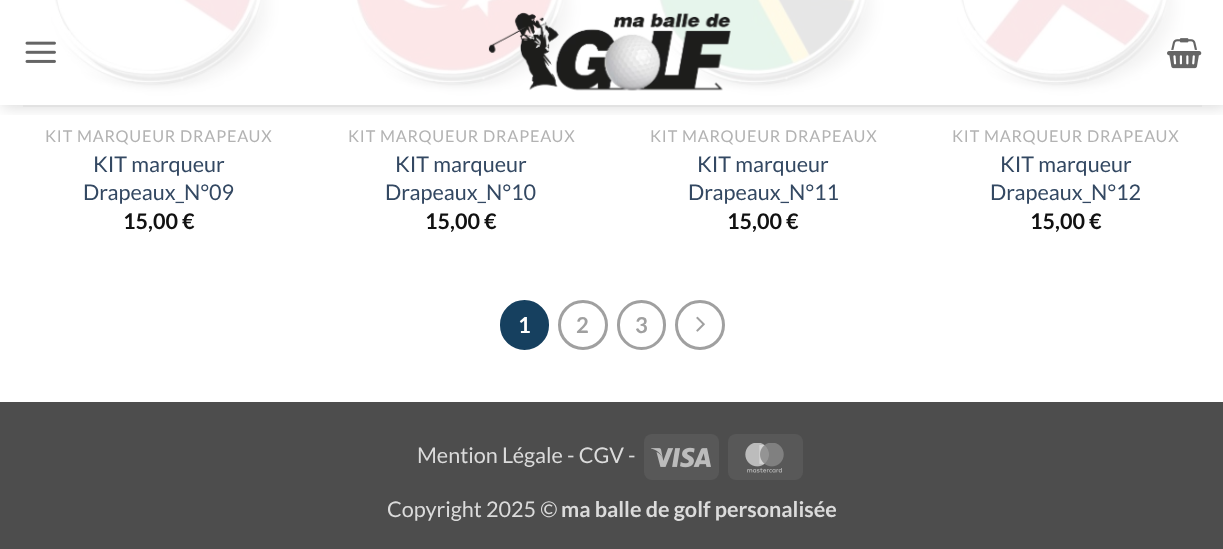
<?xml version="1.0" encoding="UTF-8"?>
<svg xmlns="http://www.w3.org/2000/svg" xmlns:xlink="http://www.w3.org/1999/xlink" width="1223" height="549">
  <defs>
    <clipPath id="clip1"><rect x="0" y="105" width="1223" height="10" /></clipPath>
  </defs>
  <rect width="100%" height="100%" fill="#ffffff" />
  <image x="50" y="0" width="231" height="96" xlink:href="image4.png" />
  <image x="351" y="0" width="231" height="97" xlink:href="image5.png" />
  <image x="649" y="0" width="235" height="97" xlink:href="image6.png" />
  <image x="955" y="0" width="232" height="97" xlink:href="image7.png" />
  <g clip-path="url(#clip1)">
    <rect x="2" y="2" width="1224" height="105" fill="#000000" fill-opacity="0.15" filter="blur(7.5px)" />
  </g>
  <image x="25" y="41" width="31" height="22" xlink:href="image1.png" />
  <image x="488" y="12" width="243" height="79" xlink:href="image2.png" />
  <image x="1167" y="38" width="35" height="31" xlink:href="image3.png" />
  <rect x="23" y="105" width="1179" height="2" fill="#e2e2e2" />
  <rect x="501.5" y="301.5" width="46" height="47" rx="23" fill="#16405f" stroke="#16405f" stroke-width="3" />
  <circle cx="583" cy="325" r="23.5" fill="none" stroke="#a0a0a0" stroke-width="3" />
  <rect x="618.5" y="301.5" width="46" height="47" rx="23" fill="none" stroke="#a0a0a0" stroke-width="3" />
  <circle cx="700" cy="325" r="23.5" fill="none" stroke="#a0a0a0" stroke-width="3" />
  <image x="696" y="316" width="9" height="16" xlink:href="image8.png" />
  <rect y="402" width="1223" height="147" fill="#4d4d4d" />
  <rect x="644" y="434" width="75" height="46" rx="8" fill="#585858" />
  <image x="651" y="447" width="60" height="21" xlink:href="image9.png" />
  <rect x="728" y="434" width="75" height="46" rx="8" fill="#585858" />
  <image x="745" y="443" width="39" height="30" xlink:href="image10.png" />
  <text x="45" y="142" style="font-family: Lato; font-size: 16.25px; letter-spacing: 0.8px; fill: #b3b3b3">KIT MARQUEUR DRAPEAUX</text>
  <text x="93" y="172" style="font-family: Lato; font-size: 21.6px; fill: #334862">KIT marqueur</text>
  <text x="83" y="200" style="font-family: Lato; font-size: 21.6px; fill: #334862">Drapeaux_N°09</text>
  <text x="123" y="229" style="font-family: Lato; font-size: 21.6px; font-weight: bold; fill: #111111">15,00 €</text>
  <text x="348" y="142" style="font-family: Lato; font-size: 16.25px; letter-spacing: 0.8px; fill: #b3b3b3">KIT MARQUEUR DRAPEAUX</text>
  <text x="395" y="172" style="font-family: Lato; font-size: 21.6px; fill: #334862">KIT marqueur</text>
  <text x="385" y="200" style="font-family: Lato; font-size: 21.6px; fill: #334862">Drapeaux_N°10</text>
  <text x="425" y="229" style="font-family: Lato; font-size: 21.6px; font-weight: bold; fill: #111111">15,00 €</text>
  <text x="650" y="142" style="font-family: Lato; font-size: 16.25px; letter-spacing: 0.8px; fill: #b3b3b3">KIT MARQUEUR DRAPEAUX</text>
  <text x="697" y="172" style="font-family: Lato; font-size: 21.6px; fill: #334862">KIT marqueur</text>
  <text x="688" y="200" style="font-family: Lato; font-size: 21.6px; fill: #334862">Drapeaux_N°11</text>
  <text x="727" y="229" style="font-family: Lato; font-size: 21.6px; font-weight: bold; fill: #111111">15,00 €</text>
  <text x="952" y="142" style="font-family: Lato; font-size: 16.25px; letter-spacing: 0.8px; fill: #b3b3b3">KIT MARQUEUR DRAPEAUX</text>
  <text x="1000" y="172" style="font-family: Lato; font-size: 21.6px; fill: #334862">KIT marqueur</text>
  <text x="990" y="200" style="font-family: Lato; font-size: 21.6px; fill: #334862">Drapeaux_N°12</text>
  <text x="1030" y="229" style="font-family: Lato; font-size: 21.6px; font-weight: bold; fill: #111111">15,00 €</text>
  <text x="518" y="333" style="font-family: Lato; font-size: 22px; font-weight: bold; fill: #ffffff">1</text>
  <text x="576" y="333" style="font-family: Lato; font-size: 22px; font-weight: bold; fill: #a0a0a0">2</text>
  <text x="635" y="333" style="font-family: Lato; font-size: 22px; font-weight: bold; fill: #a0a0a0">3</text>
  <text x="417" y="463" style="font-family: Lato; font-size: 21.6px; fill: #dbdbdb">Mention Légale - CGV -</text>
  <text x="387" y="517" style="font-family: Lato; font-size: 21.6px; fill: #dbdbdb">Copyright 2025 ©</text>
  <text x="561" y="517" style="font-family: Lato; font-size: 21.6px; font-weight: bold; fill: #dbdbdb">ma balle de golf personalisée</text>
</svg>
